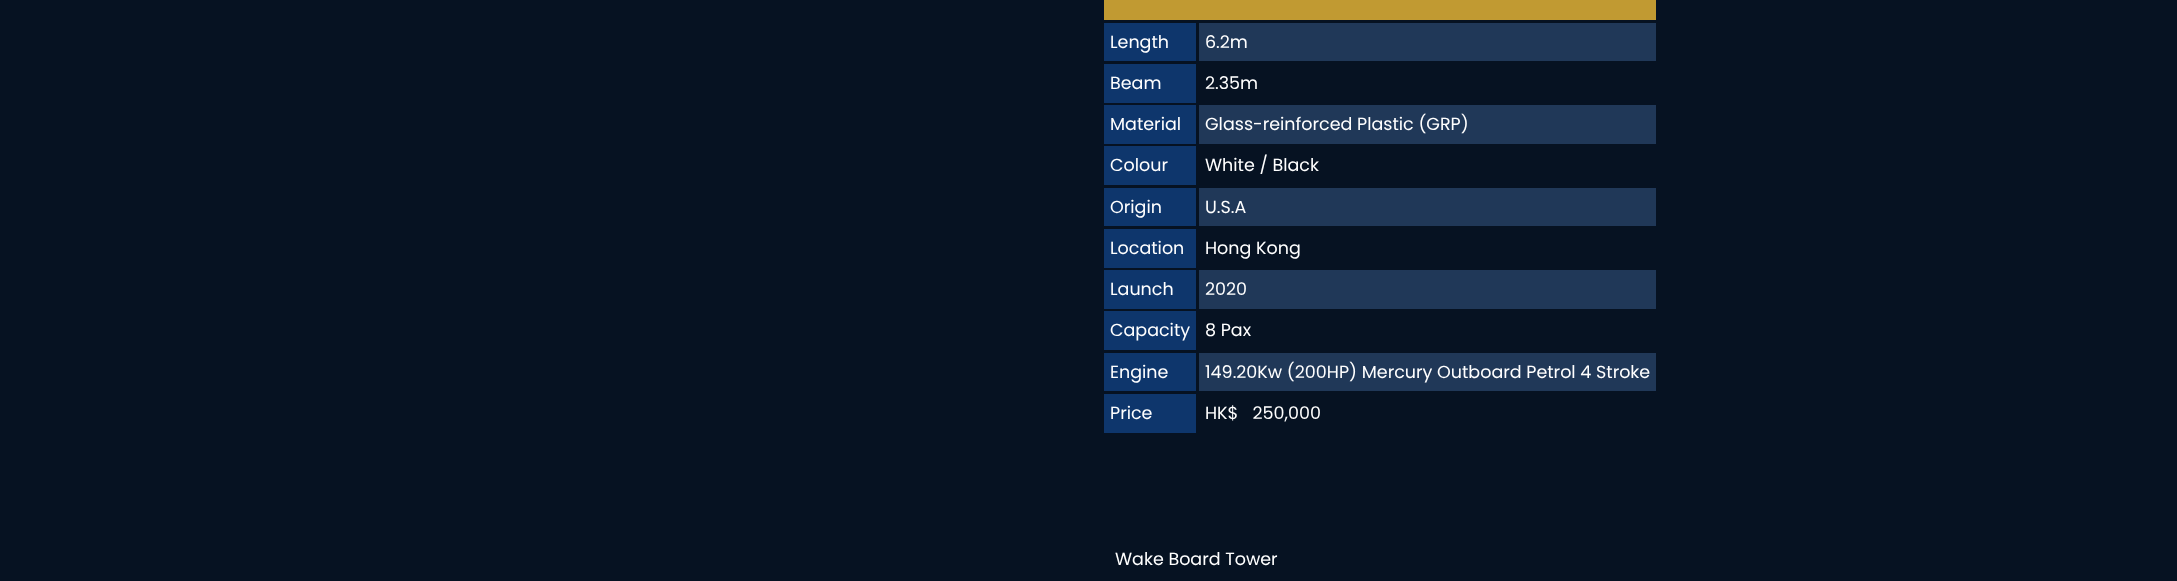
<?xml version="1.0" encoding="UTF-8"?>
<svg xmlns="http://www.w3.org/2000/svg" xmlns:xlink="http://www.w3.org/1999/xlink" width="2177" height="581">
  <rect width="100%" height="100%" fill="#061222" />
  <rect x="1104" width="552" height="20" fill="#c19a32" />
  <rect x="1104" y="23" width="92" height="38" fill="#0e366c" />
  <rect x="1199" y="23" width="457" height="38" fill="#203858" />
  <rect x="1104" y="64" width="92" height="39" fill="#0e366c" />
  <rect x="1104" y="105" width="92" height="39" fill="#0e366c" />
  <rect x="1199" y="105" width="457" height="39" fill="#203858" />
  <rect x="1104" y="146" width="92" height="39" fill="#0e366c" />
  <rect x="1104" y="188" width="92" height="38" fill="#0e366c" />
  <rect x="1199" y="188" width="457" height="38" fill="#203858" />
  <rect x="1104" y="229" width="92" height="39" fill="#0e366c" />
  <rect x="1104" y="270" width="92" height="39" fill="#0e366c" />
  <rect x="1199" y="270" width="457" height="39" fill="#203858" />
  <rect x="1104" y="311" width="92" height="39" fill="#0e366c" />
  <rect x="1104" y="353" width="92" height="38" fill="#0e366c" />
  <rect x="1199" y="353" width="457" height="38" fill="#203858" />
  <rect x="1104" y="394" width="92" height="39" fill="#0e366c" />
  <text x="1110" y="48" style="font-family: Poppins; font-size: 17.5px; fill: #ffffff">Length</text>
  <text x="1205" y="48" style="font-family: Poppins; font-size: 17.5px; fill: #ffffff">6.2m</text>
  <text x="1110" y="89" style="font-family: Poppins; font-size: 17.5px; fill: #ffffff">Beam</text>
  <text x="1205" y="89" style="font-family: Poppins; font-size: 17.5px; fill: #ffffff">2.35m</text>
  <text x="1110" y="130" style="font-family: Poppins; font-size: 17.5px; fill: #ffffff">Material</text>
  <text x="1205" y="130" style="font-family: Poppins; font-size: 17.5px; fill: #ffffff">Glass-reinforced Plastic (GRP)</text>
  <text x="1110" y="171" style="font-family: Poppins; font-size: 17.5px; fill: #ffffff">Colour</text>
  <text x="1205" y="171" style="font-family: Poppins; font-size: 17.5px; fill: #ffffff">White / Black</text>
  <text x="1110" y="213" style="font-family: Poppins; font-size: 17.5px; fill: #ffffff">Origin</text>
  <text x="1205" y="213" style="font-family: Poppins; font-size: 17.5px; fill: #ffffff">U.S.A</text>
  <text x="1110" y="254" style="font-family: Poppins; font-size: 17.5px; fill: #ffffff">Location</text>
  <text x="1205" y="254" style="font-family: Poppins; font-size: 17.5px; fill: #ffffff">Hong Kong</text>
  <text x="1110" y="295" style="font-family: Poppins; font-size: 17.5px; fill: #ffffff">Launch</text>
  <text x="1205" y="295" style="font-family: Poppins; font-size: 17.5px; fill: #ffffff">2020</text>
  <text x="1110" y="336" style="font-family: Poppins; font-size: 17.5px; fill: #ffffff">Capacity</text>
  <text x="1205" y="336" style="font-family: Poppins; font-size: 17.5px; fill: #ffffff">8 Pax</text>
  <text x="1110" y="378" style="font-family: Poppins; font-size: 17.5px; fill: #ffffff">Engine</text>
  <text x="1205" y="378" style="font-family: Poppins; font-size: 17.5px; fill: #ffffff">149.20Kw (200HP) Mercury Outboard Petrol 4 Stroke</text>
  <text x="1110" y="419" style="font-family: Poppins; font-size: 17.5px; fill: #ffffff">Price</text>
  <text x="1205" y="419" style="font-family: Poppins; font-size: 17.5px; fill: #ffffff" xml:space="preserve">HK$   250,000</text>
  <text x="1115" y="565" style="font-family: Poppins; font-size: 17.5px; fill: #ffffff">Wake Board Tower</text>
</svg>
